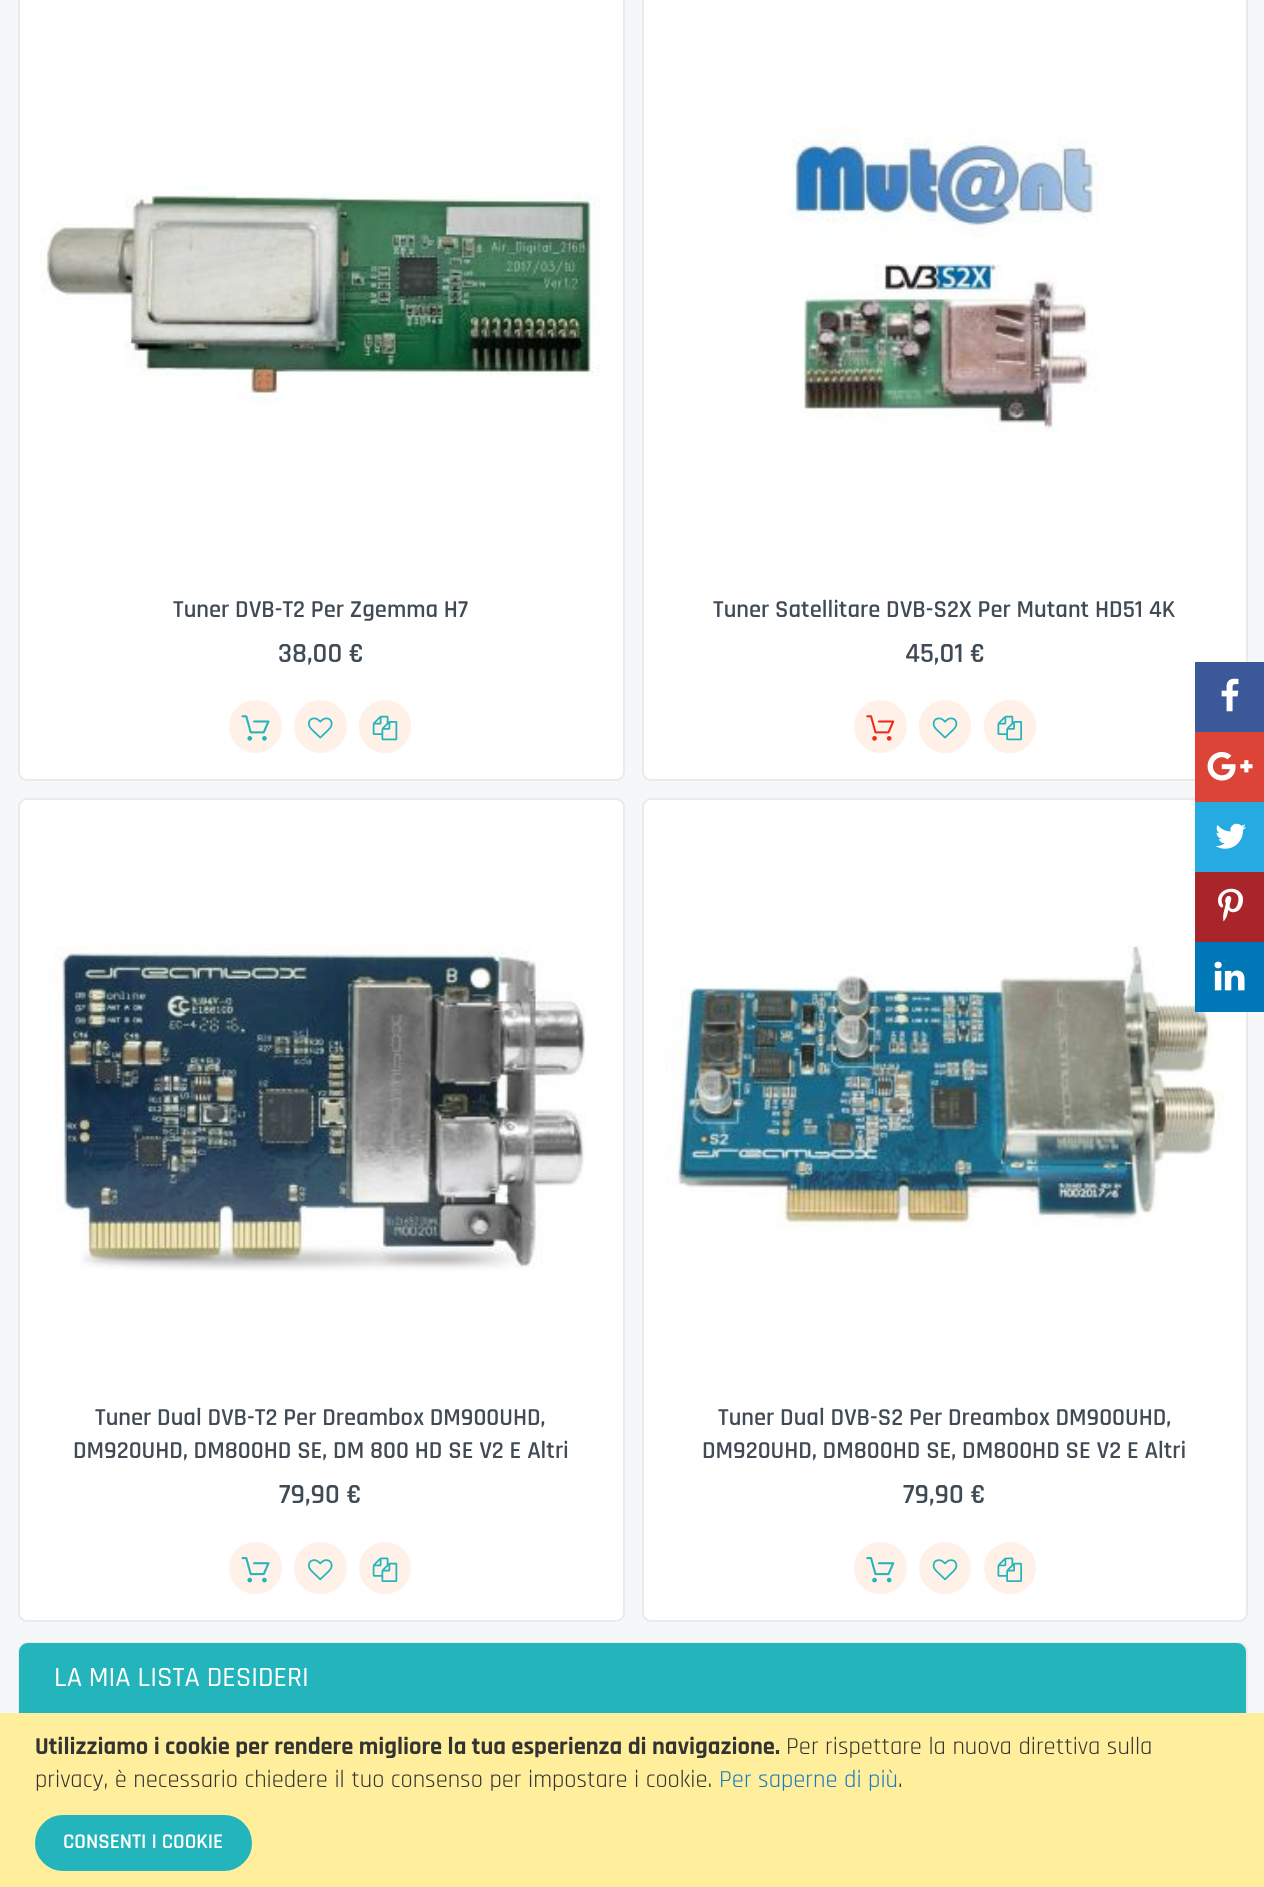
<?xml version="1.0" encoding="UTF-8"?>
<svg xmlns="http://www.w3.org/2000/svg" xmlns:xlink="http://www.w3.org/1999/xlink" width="1264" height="1887">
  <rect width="100%" height="100%" fill="#f6f7f9" />
  <rect x="19" y="-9" width="605" height="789" rx="8" fill="#ffffff" stroke="#e9eaec" stroke-width="2" />
  <image x="40" y="186" width="561" height="219" xlink:href="image1.png" />
  <circle cx="255.5" cy="726.5" r="25.5" fill="#fff1e8" stroke="#fff1e8" stroke-width="2" />
  <image x="241" y="715" width="29" height="26" xlink:href="image2.png" />
  <circle cx="320.5" cy="726.5" r="25.5" fill="#fff1e8" stroke="#fff1e8" stroke-width="2" />
  <image x="308" y="717" width="25" height="22" xlink:href="image3.png" />
  <rect x="360" y="701" width="50" height="51" rx="25" fill="#fff1e8" stroke="#fff1e8" stroke-width="2" />
  <image x="372" y="715" width="26" height="26" xlink:href="image4.png" />
  <rect x="643" y="-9" width="604" height="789" rx="8" fill="#ffffff" stroke="#e9eaec" stroke-width="2" />
  <image x="777" y="125" width="336" height="308" xlink:href="image5.png" />
  <circle cx="880.5" cy="726.5" r="25.5" fill="#fff1e8" stroke="#fff1e8" stroke-width="2" />
  <image x="866" y="715" width="29" height="26" xlink:href="image6.png" />
  <rect x="920" y="701" width="50" height="51" rx="25" fill="#fff1e8" stroke="#fff1e8" stroke-width="2" />
  <image x="932" y="717" width="26" height="22" xlink:href="image7.png" />
  <rect x="985" y="701" width="50" height="51" rx="25" fill="#fff1e8" stroke="#fff1e8" stroke-width="2" />
  <image x="997" y="715" width="25" height="26" xlink:href="image8.png" />
  <rect x="19" y="799" width="605" height="822" rx="8" fill="#ffffff" stroke="#e9eaec" stroke-width="2" />
  <image x="41" y="934" width="545" height="337" xlink:href="image9.png" />
  <rect x="230" y="1543" width="51" height="50" rx="25" fill="#fff1e8" stroke="#fff1e8" stroke-width="2" />
  <image x="241" y="1557" width="29" height="26" xlink:href="image10.png" />
  <rect x="295" y="1543" width="51" height="50" rx="25" fill="#fff1e8" stroke="#fff1e8" stroke-width="2" />
  <image x="308" y="1559" width="25" height="22" xlink:href="image11.png" />
  <circle cx="385" cy="1568" r="25" fill="#fff1e8" stroke="#fff1e8" stroke-width="2" />
  <image x="372" y="1557" width="26" height="25" xlink:href="image12.png" />
  <rect x="643" y="799" width="604" height="822" rx="8" fill="#ffffff" stroke="#e9eaec" stroke-width="2" />
  <image x="665" y="946" width="559" height="287" xlink:href="image13.png" />
  <rect x="855" y="1543" width="51" height="50" rx="25" fill="#fff1e8" stroke="#fff1e8" stroke-width="2" />
  <image x="866" y="1557" width="29" height="26" xlink:href="image14.png" />
  <circle cx="945" cy="1568" r="25" fill="#fff1e8" stroke="#fff1e8" stroke-width="2" />
  <image x="932" y="1559" width="26" height="22" xlink:href="image15.png" />
  <circle cx="1010" cy="1568" r="25" fill="#fff1e8" stroke="#fff1e8" stroke-width="2" />
  <image x="997" y="1557" width="25" height="25" xlink:href="image16.png" />
  <rect x="1195" y="662" width="69" height="70" fill="#3b5998" />
  <image x="1221" y="678" width="18" height="34" xlink:href="image17.png" />
  <rect x="1195" y="732" width="69" height="70" fill="#db4437" />
  <image x="1207" y="751" width="46" height="30" xlink:href="image18.png" />
  <rect x="1195" y="802" width="69" height="70" fill="#25aae1" />
  <image x="1215" y="823" width="31" height="26" xlink:href="image19.png" />
  <rect x="1195" y="872" width="69" height="70" fill="#aa2529" />
  <image x="1218" y="888" width="25" height="34" xlink:href="image20.png" />
  <rect x="1195" y="942" width="69" height="70" fill="#0077b7" />
  <image x="1214" y="961" width="31" height="30" xlink:href="image21.png" />
  <rect x="19" y="1643" width="1228" height="157" rx="8" fill="#ffffff" stroke="#e9eaec" stroke-width="2" />
  <path d="M 28 1643 h 1209 c 5 0 9 4 9 9 v 63 h -1227 v -63 c 0 -5 4 -9 9 -9 z" fill="#23b5bb" />
  <rect y="1713" width="1264" height="174" fill="#ffee9c" />
  <rect x="36" y="1816" width="215" height="54" rx="27" fill="#23b5bb" stroke="#23b5bb" stroke-width="2" />
  <text x="173" y="617" style="font-family: Rajdhani; font-size: 24.5px; font-weight: 600; fill: #414b56">Tuner DVB-T2 Per Zgemma H7</text>
  <text x="278" y="662" style="font-family: Rajdhani; font-size: 28px; font-weight: 600; fill: #414b56">38,00 €</text>
  <text x="713" y="617" style="font-family: Rajdhani; font-size: 24.5px; font-weight: 600; fill: #414b56">Tuner Satellitare DVB-S2X Per Mutant HD51 4K</text>
  <text x="905" y="662" style="font-family: Rajdhani; font-size: 28px; font-weight: 600; fill: #414b56">45,01 €</text>
  <text x="95" y="1425" style="font-family: Rajdhani; font-size: 24.5px; font-weight: 600; fill: #414b56">Tuner Dual DVB-T2 Per Dreambox DM900UHD,</text>
  <text x="73" y="1458" style="font-family: Rajdhani; font-size: 24.5px; font-weight: 600; fill: #414b56">DM920UHD, DM800HD SE, DM 800 HD SE V2 E Altri</text>
  <text x="279" y="1503" style="font-family: Rajdhani; font-size: 28px; font-weight: 600; fill: #414b56">79,90 €</text>
  <text x="718" y="1425" style="font-family: Rajdhani; font-size: 24.5px; font-weight: 600; fill: #414b56">Tuner Dual DVB-S2 Per Dreambox DM900UHD,</text>
  <text x="702" y="1458" style="font-family: Rajdhani; font-size: 24.5px; font-weight: 600; fill: #414b56">DM920UHD, DM800HD SE, DM800HD SE V2 E Altri</text>
  <text x="903" y="1503" style="font-family: Rajdhani; font-size: 28px; font-weight: 600; fill: #414b56">79,90 €</text>
  <text x="54" y="1686" style="font-family: Rajdhani; font-size: 28px; font-weight: 500; fill: #ffffff">LA MIA LISTA DESIDERI</text>
  <text x="35" y="1754" style="font-family: Rajdhani; font-size: 24.5px; font-weight: bold; fill: #333333">Utilizziamo i cookie per rendere migliore la tua esperienza di navigazione.</text>
  <text x="786" y="1754" style="font-family: Rajdhani; font-size: 24.5px; fill: #333333">Per rispettare la nuova direttiva sulla</text>
  <text x="35" y="1787" style="font-family: Rajdhani; font-size: 24.5px; fill: #333333">privacy, è necessario chiedere il tuo consenso per impostare i cookie.</text>
  <text x="719" y="1787" style="font-family: Rajdhani; font-size: 24.5px; fill: #1979c3">Per saperne di più</text>
  <text x="898" y="1787" style="font-family: Rajdhani; font-size: 24.5px; fill: #333333">.</text>
  <text x="63" y="1848" style="font-family: Rajdhani; font-size: 21px; font-weight: 600; fill: #ffffff">CONSENTI I COOKIE</text>
</svg>
